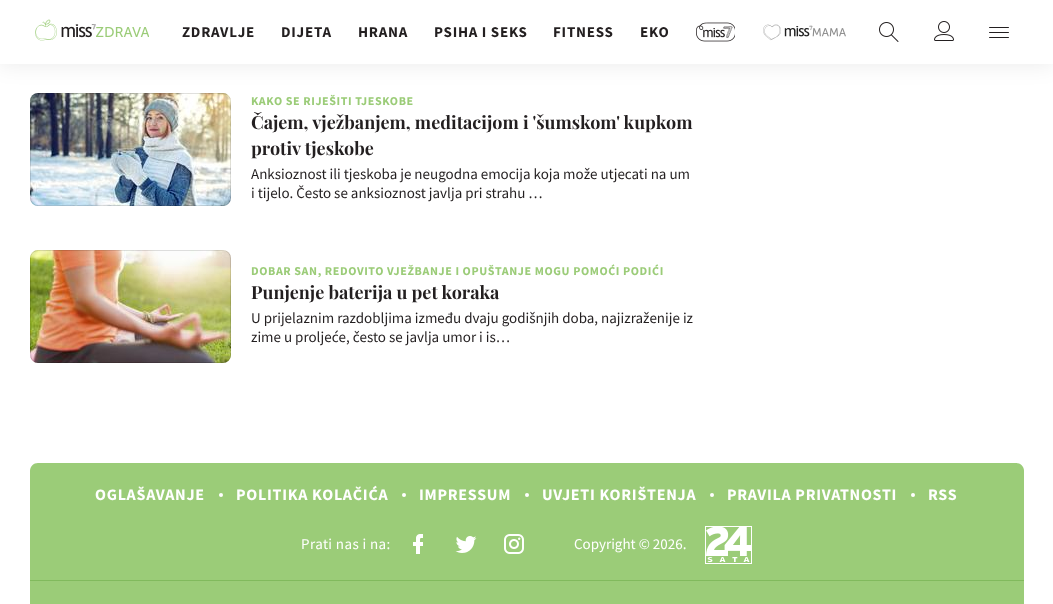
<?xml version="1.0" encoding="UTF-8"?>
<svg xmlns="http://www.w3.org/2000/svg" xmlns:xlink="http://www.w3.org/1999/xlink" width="1053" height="604">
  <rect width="100%" height="100%" fill="#ffffff" />
  <image x="30" y="93" width="201" height="113" xlink:href="image7.png" />
  <rect x="30.5" y="93.5" width="200" height="112" rx="7.5" fill="none" stroke="#000000" stroke-opacity="0.12" />
  <rect x="-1" y="-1" width="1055" height="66" fill="#000000" fill-opacity="0.08" filter="blur(10.5px)" />
  <rect width="1053" height="64" fill="#ffffff" />
  <image x="35" y="19" width="114" height="22" xlink:href="image1.png" />
  <image x="696" y="22" width="39" height="20" xlink:href="image2.png" />
  <image x="763" y="24" width="83" height="17" xlink:href="image3.png" />
  <image x="879" y="22" width="20" height="20" xlink:href="image4.png" />
  <image x="934" y="21" width="20" height="20" xlink:href="image5.png" />
  <image x="989" y="27" width="20" height="11" xlink:href="image6.png" />
  <image x="30" y="250" width="201" height="113" xlink:href="image8.png" />
  <rect x="30.5" y="250.5" width="200" height="112" rx="7.5" fill="none" stroke="#000000" stroke-opacity="0.12" />
  <path d="M 38 463 h 978 c 4.5 0 8 3.5 8 8 v 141 h -994 v -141 c 0 -4.5 3.5 -8 8 -8 z" fill="#9bcc78" />
  <circle cx="221" cy="495" r="2" fill="#ffffff" />
  <circle cx="404" cy="495" r="2" fill="#ffffff" />
  <circle cx="527" cy="495" r="2" fill="#ffffff" />
  <circle cx="712" cy="495" r="2" fill="#ffffff" />
  <circle cx="913" cy="495" r="2" fill="#ffffff" />
  <image x="413" y="534" width="10" height="20" xlink:href="image9.png" />
  <image x="455" y="536" width="22" height="17" xlink:href="image10.png" />
  <image x="504" y="534" width="20" height="20" xlink:href="image11.png" />
  <image x="705" y="526" width="47" height="38" xlink:href="image12.png" />
  <rect x="30" y="580" width="994" height="1" fill="#81ba5d" />
  <text x="182" y="37" style="font-family: Source Sans Pro; font-size: 15px; font-weight: bold; letter-spacing: 0.75px; fill: #231f20">ZDRAVLJE</text>
  <text x="281" y="37" style="font-family: Source Sans Pro; font-size: 15px; font-weight: bold; letter-spacing: 0.75px; fill: #231f20">DIJETA</text>
  <text x="358" y="37" style="font-family: Source Sans Pro; font-size: 15px; font-weight: bold; letter-spacing: 0.75px; fill: #231f20">HRANA</text>
  <text x="434" y="37" style="font-family: Source Sans Pro; font-size: 15px; font-weight: bold; letter-spacing: 0.75px; fill: #231f20">PSIHA I SEKS</text>
  <text x="553" y="37" style="font-family: Source Sans Pro; font-size: 15px; font-weight: bold; letter-spacing: 0.75px; fill: #231f20">FITNESS</text>
  <text x="640" y="37" style="font-family: Source Sans Pro; font-size: 15px; font-weight: bold; letter-spacing: 0.75px; fill: #231f20">EKO</text>
  <text x="251" y="105" style="font-family: Source Sans Pro; font-size: 12px; font-weight: bold; letter-spacing: 0.6px; fill: #9bcc78">KAKO SE RIJEŠITI TJESKOBE</text>
  <text x="251" y="129" style="font-family: Playfair Display; font-size: 18px; font-weight: bold; fill: #231f20">Čajem, vježbanjem, meditacijom i 'šumskom' kupkom</text>
  <text x="251" y="155" style="font-family: Playfair Display; font-size: 18px; font-weight: bold; fill: #231f20">protiv tjeskobe</text>
  <text x="251" y="179" style="font-family: Source Sans Pro; font-size: 15px; fill: #231f20">Anksioznost ili tjeskoba je neugodna emocija koja može utjecati na um</text>
  <text x="251" y="198" style="font-family: Source Sans Pro; font-size: 15px; fill: #231f20">i tijelo. Često se anksioznost javlja pri strahu …</text>
  <text x="251" y="275" style="font-family: Source Sans Pro; font-size: 12px; font-weight: bold; letter-spacing: 0.6px; fill: #9bcc78">DOBAR SAN, REDOVITO VJEŽBANJE I OPUŠTANJE MOGU POMOĆI PODIĆI</text>
  <text x="251" y="299" style="font-family: Playfair Display; font-size: 18px; font-weight: bold; fill: #231f20">Punjenje baterija u pet koraka</text>
  <text x="251" y="323" style="font-family: Source Sans Pro; font-size: 15px; fill: #231f20">U prijelaznim razdobljima između dvaju godišnjih doba, najizraženije iz</text>
  <text x="251" y="342" style="font-family: Source Sans Pro; font-size: 15px; fill: #231f20">zime u proljeće, često se javlja umor i is…</text>
  <text x="95" y="500" style="font-family: Source Sans Pro; font-size: 16px; font-weight: bold; letter-spacing: 0.75px; fill: #ffffff">OGLAŠAVANJE</text>
  <text x="236" y="500" style="font-family: Source Sans Pro; font-size: 16px; font-weight: bold; letter-spacing: 0.75px; fill: #ffffff">POLITIKA KOLAČIĆA</text>
  <text x="419" y="500" style="font-family: Source Sans Pro; font-size: 16px; font-weight: bold; letter-spacing: 0.75px; fill: #ffffff">IMPRESSUM</text>
  <text x="542" y="500" style="font-family: Source Sans Pro; font-size: 16px; font-weight: bold; letter-spacing: 0.75px; fill: #ffffff">UVJETI KORIŠTENJA</text>
  <text x="727" y="500" style="font-family: Source Sans Pro; font-size: 16px; font-weight: bold; letter-spacing: 0.75px; fill: #ffffff">PRAVILA PRIVATNOSTI</text>
  <text x="928" y="500" style="font-family: Source Sans Pro; font-size: 16px; font-weight: bold; letter-spacing: 0.75px; fill: #ffffff">RSS</text>
  <text x="301" y="549" style="font-family: Source Sans Pro; font-size: 15px; letter-spacing: 0.4px; fill: #ffffff">Prati nas i na:</text>
  <text x="574" y="549" style="font-family: Source Sans Pro; font-size: 15px; fill: #ffffff">Copyright © 2026.</text>
</svg>
